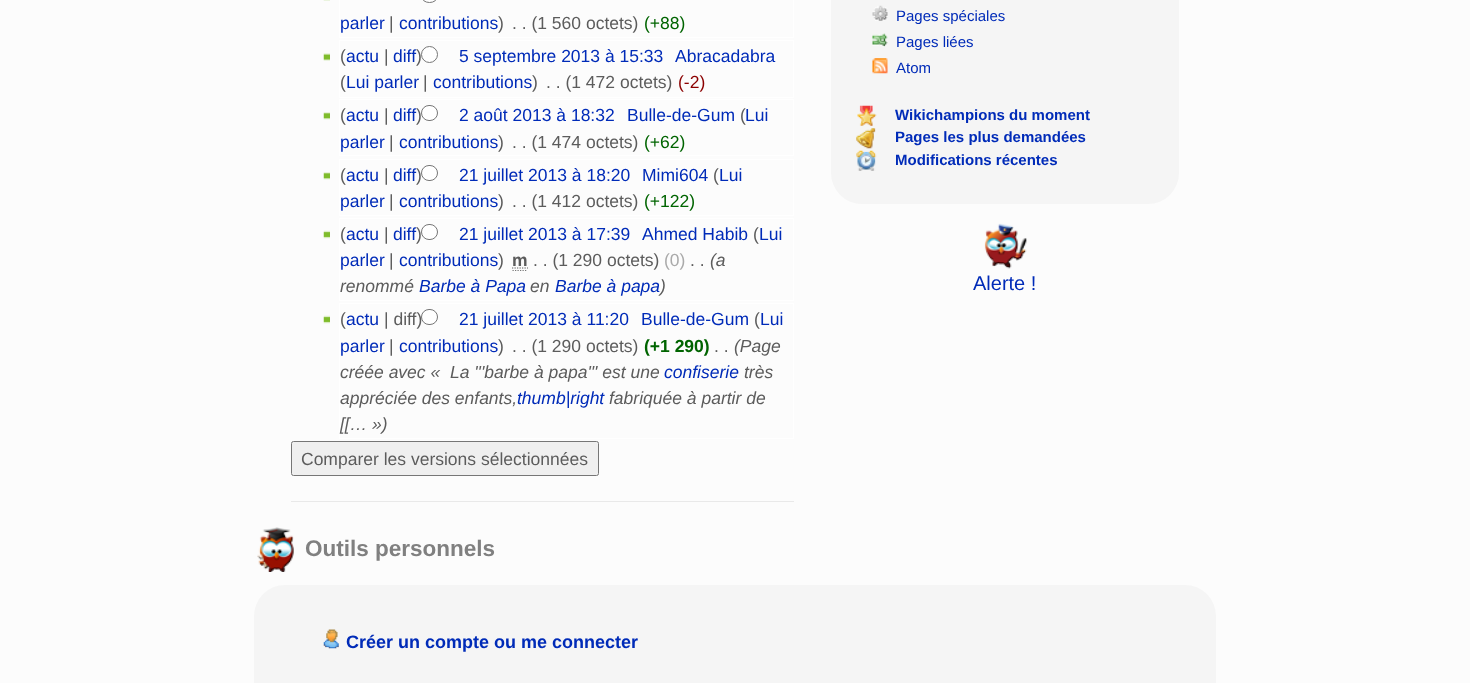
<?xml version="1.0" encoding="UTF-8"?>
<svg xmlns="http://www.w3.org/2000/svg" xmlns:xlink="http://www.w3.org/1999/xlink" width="1470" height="683">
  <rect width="100%" height="100%" fill="#fcfcfc" />
  <rect x="291" y="501" width="503" height="1" fill="#e9e9e9" />
  <rect x="339.5" y="-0.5" width="454" height="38" fill="none" stroke="#ffffff" />
  <image x="323" y="0" width="7" height="1" xlink:href="image1.png" />
  <rect x="421.5" y="-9.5" width="16" height="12" rx="8" fill="#ffffff" stroke="#767676" />
  <rect x="339.5" y="40.5" width="454" height="57" fill="none" stroke="#ffffff" />
  <image x="323" y="53" width="7" height="8" xlink:href="image2.png" />
  <circle cx="429.5" cy="54.5" r="8" fill="#ffffff" stroke="#767676" />
  <rect x="339.5" y="99.5" width="454" height="56" fill="none" stroke="#ffffff" />
  <image x="323" y="112" width="7" height="8" xlink:href="image3.png" />
  <rect x="421.5" y="105.5" width="16" height="15" rx="7.5" fill="#ffffff" stroke="#767676" />
  <rect x="339.5" y="159.5" width="454" height="56" fill="none" stroke="#ffffff" />
  <image x="323" y="172" width="7" height="8" xlink:href="image3.png" />
  <rect x="421.5" y="165.5" width="16" height="15" rx="7.5" fill="#ffffff" stroke="#767676" />
  <rect x="339.5" y="218.5" width="454" height="82" fill="none" stroke="#ffffff" />
  <image x="323" y="230" width="7" height="9" xlink:href="image4.png" />
  <rect x="421.5" y="224.5" width="16" height="15" rx="7.5" fill="#ffffff" stroke="#767676" />
  <path d="M 512.5 270.5 h 15" fill="none" stroke="#777777" stroke-width="1.2" stroke-dasharray="1.25 1.25" />
  <path d="M 512 268 h 16" fill="none" stroke="#5c5c5c" stroke-width="1.2" stroke-dasharray="1.25 1.25" />
  <rect x="339.5" y="303.5" width="454" height="135" fill="none" stroke="#ffffff" />
  <image x="323" y="315" width="7" height="9" xlink:href="image4.png" />
  <rect x="421.5" y="309.5" width="16" height="15" rx="7.5" fill="#ffffff" stroke="#767676" />
  <rect x="291.5" y="441.5" width="307" height="34" rx="2" fill="#efefef" stroke="#767676" />
  <rect x="831" y="-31" width="348" height="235" rx="31" fill="#f5f5f5" />
  <image x="872" y="5" width="16" height="16" xlink:href="image5.png" />
  <image x="872" y="33" width="16" height="14" xlink:href="image6.png" />
  <image x="872" y="58" width="16" height="16" xlink:href="image7.png" />
  <image x="857" y="105" width="20" height="21" xlink:href="image8.png" />
  <image x="856" y="128" width="20" height="21" xlink:href="image9.png" />
  <image x="856" y="150" width="21" height="21" xlink:href="image10.png" />
  <image x="984" y="223" width="43" height="46" xlink:href="image11.png" />
  <image x="257" y="527" width="37" height="45" xlink:href="image12.png" />
  <rect x="254" y="585" width="962" height="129" rx="31" fill="#f5f5f5" />
  <image x="323" y="629" width="16" height="20" xlink:href="image13.png" />
  <text x="340" y="29" style="font-family: Liberation Sans; font-size: 17.5px; fill: #002bb8">parler</text>
  <text x="389" y="29" style="font-family: Liberation Sans; font-size: 17.5px; fill: #5c5c5c">|</text>
  <text x="399" y="29" style="font-family: Liberation Sans; font-size: 17.5px; fill: #002bb8">contributions</text>
  <text x="498" y="29" style="font-family: Liberation Sans; font-size: 17.5px; fill: #5c5c5c">)</text>
  <text x="512" y="29" style="font-family: Liberation Sans; font-size: 17.5px; fill: #5c5c5c">. . (1 560 octets)</text>
  <text x="644" y="29" style="font-family: Liberation Sans; font-size: 17.5px; fill: #006400">(+88)</text>
  <text x="340" y="62" style="font-family: Liberation Sans; font-size: 17.5px; fill: #5c5c5c">(</text>
  <text x="346" y="62" style="font-family: Liberation Sans; font-size: 17.5px; fill: #002bb8">actu</text>
  <text x="384" y="62" style="font-family: Liberation Sans; font-size: 17.5px; fill: #5c5c5c">|</text>
  <text x="393" y="62" style="font-family: Liberation Sans; font-size: 17.5px; fill: #002bb8">diff</text>
  <text x="416" y="62" style="font-family: Liberation Sans; font-size: 17.5px; fill: #5c5c5c">)</text>
  <text x="459" y="62" style="font-family: Liberation Sans; font-size: 17.5px; fill: #002bb8">5 septembre 2013 à 15:33</text>
  <text x="675" y="62" style="font-family: Liberation Sans; font-size: 17.5px; fill: #002bb8">Abracadabra</text>
  <text x="340" y="88" style="font-family: Liberation Sans; font-size: 17.5px; fill: #5c5c5c">(</text>
  <text x="346" y="88" style="font-family: Liberation Sans; font-size: 17.5px; fill: #002bb8">Lui parler</text>
  <text x="423" y="88" style="font-family: Liberation Sans; font-size: 17.5px; fill: #5c5c5c">|</text>
  <text x="433" y="88" style="font-family: Liberation Sans; font-size: 17.5px; fill: #002bb8">contributions</text>
  <text x="532" y="88" style="font-family: Liberation Sans; font-size: 17.5px; fill: #5c5c5c">)</text>
  <text x="546" y="88" style="font-family: Liberation Sans; font-size: 17.5px; fill: #5c5c5c">. . (1 472 octets)</text>
  <text x="678" y="88" style="font-family: Liberation Sans; font-size: 17.5px; fill: #8b0000">(-2)</text>
  <text x="340" y="121" style="font-family: Liberation Sans; font-size: 17.5px; fill: #5c5c5c">(</text>
  <text x="346" y="121" style="font-family: Liberation Sans; font-size: 17.5px; fill: #002bb8">actu</text>
  <text x="384" y="121" style="font-family: Liberation Sans; font-size: 17.5px; fill: #5c5c5c">|</text>
  <text x="393" y="121" style="font-family: Liberation Sans; font-size: 17.5px; fill: #002bb8">diff</text>
  <text x="416" y="121" style="font-family: Liberation Sans; font-size: 17.5px; fill: #5c5c5c">)</text>
  <text x="459" y="121" style="font-family: Liberation Sans; font-size: 17.5px; fill: #002bb8">2 août 2013 à 18:32</text>
  <text x="627" y="121" style="font-family: Liberation Sans; font-size: 17.5px; fill: #002bb8">Bulle-de-Gum</text>
  <text x="740" y="121" style="font-family: Liberation Sans; font-size: 17.5px; fill: #5c5c5c">(</text>
  <text x="745" y="121" style="font-family: Liberation Sans; font-size: 17.5px; fill: #002bb8">Lui</text>
  <text x="340" y="148" style="font-family: Liberation Sans; font-size: 17.5px; fill: #002bb8">parler</text>
  <text x="389" y="148" style="font-family: Liberation Sans; font-size: 17.5px; fill: #5c5c5c">|</text>
  <text x="399" y="148" style="font-family: Liberation Sans; font-size: 17.5px; fill: #002bb8">contributions</text>
  <text x="498" y="148" style="font-family: Liberation Sans; font-size: 17.5px; fill: #5c5c5c">)</text>
  <text x="512" y="148" style="font-family: Liberation Sans; font-size: 17.5px; fill: #5c5c5c">. . (1 474 octets)</text>
  <text x="644" y="148" style="font-family: Liberation Sans; font-size: 17.5px; fill: #006400">(+62)</text>
  <text x="340" y="181" style="font-family: Liberation Sans; font-size: 17.5px; fill: #5c5c5c">(</text>
  <text x="346" y="181" style="font-family: Liberation Sans; font-size: 17.5px; fill: #002bb8">actu</text>
  <text x="384" y="181" style="font-family: Liberation Sans; font-size: 17.5px; fill: #5c5c5c">|</text>
  <text x="393" y="181" style="font-family: Liberation Sans; font-size: 17.5px; fill: #002bb8">diff</text>
  <text x="416" y="181" style="font-family: Liberation Sans; font-size: 17.5px; fill: #5c5c5c">)</text>
  <text x="459" y="181" style="font-family: Liberation Sans; font-size: 17.5px; fill: #002bb8">21 juillet 2013 à 18:20</text>
  <text x="642" y="181" style="font-family: Liberation Sans; font-size: 17.5px; fill: #002bb8">Mimi604</text>
  <text x="713" y="181" style="font-family: Liberation Sans; font-size: 17.5px; fill: #5c5c5c">(</text>
  <text x="719" y="181" style="font-family: Liberation Sans; font-size: 17.5px; fill: #002bb8">Lui</text>
  <text x="340" y="207" style="font-family: Liberation Sans; font-size: 17.5px; fill: #002bb8">parler</text>
  <text x="389" y="207" style="font-family: Liberation Sans; font-size: 17.5px; fill: #5c5c5c">|</text>
  <text x="399" y="207" style="font-family: Liberation Sans; font-size: 17.5px; fill: #002bb8">contributions</text>
  <text x="498" y="207" style="font-family: Liberation Sans; font-size: 17.5px; fill: #5c5c5c">)</text>
  <text x="512" y="207" style="font-family: Liberation Sans; font-size: 17.5px; fill: #5c5c5c">. . (1 412 octets)</text>
  <text x="644" y="207" style="font-family: Liberation Sans; font-size: 17.5px; fill: #006400">(+122)</text>
  <text x="340" y="240" style="font-family: Liberation Sans; font-size: 17.5px; fill: #5c5c5c">(</text>
  <text x="346" y="240" style="font-family: Liberation Sans; font-size: 17.5px; fill: #002bb8">actu</text>
  <text x="384" y="240" style="font-family: Liberation Sans; font-size: 17.5px; fill: #5c5c5c">|</text>
  <text x="393" y="240" style="font-family: Liberation Sans; font-size: 17.5px; fill: #002bb8">diff</text>
  <text x="416" y="240" style="font-family: Liberation Sans; font-size: 17.5px; fill: #5c5c5c">)</text>
  <text x="459" y="240" style="font-family: Liberation Sans; font-size: 17.5px; fill: #002bb8">21 juillet 2013 à 17:39</text>
  <text x="642" y="240" style="font-family: Liberation Sans; font-size: 17.5px; fill: #002bb8">Ahmed Habib</text>
  <text x="753" y="240" style="font-family: Liberation Sans; font-size: 17.5px; fill: #5c5c5c">(</text>
  <text x="759" y="240" style="font-family: Liberation Sans; font-size: 17.5px; fill: #002bb8">Lui</text>
  <text x="340" y="266" style="font-family: Liberation Sans; font-size: 17.5px; fill: #002bb8">parler</text>
  <text x="389" y="266" style="font-family: Liberation Sans; font-size: 17.5px; fill: #5c5c5c">|</text>
  <text x="399" y="266" style="font-family: Liberation Sans; font-size: 17.5px; fill: #002bb8">contributions</text>
  <text x="498" y="266" style="font-family: Liberation Sans; font-size: 17.5px; fill: #5c5c5c">)</text>
  <text x="512" y="266" style="font-family: Liberation Sans; font-size: 17.5px; font-weight: bold; fill: #5c5c5c">m</text>
  <text x="533" y="266" style="font-family: Liberation Sans; font-size: 17.5px; fill: #5c5c5c">. . (1 290 octets)</text>
  <text x="664" y="266" style="font-family: Liberation Sans; font-size: 17.5px; fill: #aaaaaa">(0)</text>
  <text x="690" y="266" style="font-family: Liberation Sans; font-size: 17.5px; fill: #5c5c5c">. .</text>
  <text x="710" y="266" style="font-family: Liberation Sans; font-size: 17.5px; font-style: italic; fill: #5c5c5c">(a</text>
  <text x="340" y="292" style="font-family: Liberation Sans; font-size: 17.5px; font-style: italic; fill: #5c5c5c">renommé</text>
  <text x="419" y="292" style="font-family: Liberation Sans; font-size: 17.5px; font-style: italic; fill: #002bb8">Barbe à Papa</text>
  <text x="530" y="292" style="font-family: Liberation Sans; font-size: 17.5px; font-style: italic; fill: #5c5c5c">en</text>
  <text x="555" y="292" style="font-family: Liberation Sans; font-size: 17.5px; font-style: italic; fill: #002bb8">Barbe à papa</text>
  <text x="660" y="292" style="font-family: Liberation Sans; font-size: 17.5px; font-style: italic; fill: #5c5c5c">)</text>
  <text x="340" y="325" style="font-family: Liberation Sans; font-size: 17.5px; fill: #5c5c5c">(</text>
  <text x="346" y="325" style="font-family: Liberation Sans; font-size: 17.5px; fill: #002bb8">actu</text>
  <text x="384" y="325" style="font-family: Liberation Sans; font-size: 17.5px; fill: #5c5c5c">| diff)</text>
  <text x="459" y="325" style="font-family: Liberation Sans; font-size: 17.5px; fill: #002bb8">21 juillet 2013 à 11:20</text>
  <text x="641" y="325" style="font-family: Liberation Sans; font-size: 17.5px; fill: #002bb8">Bulle-de-Gum</text>
  <text x="754" y="325" style="font-family: Liberation Sans; font-size: 17.5px; fill: #5c5c5c">(</text>
  <text x="760" y="325" style="font-family: Liberation Sans; font-size: 17.5px; fill: #002bb8">Lui</text>
  <text x="340" y="352" style="font-family: Liberation Sans; font-size: 17.5px; fill: #002bb8">parler</text>
  <text x="389" y="352" style="font-family: Liberation Sans; font-size: 17.5px; fill: #5c5c5c">|</text>
  <text x="399" y="352" style="font-family: Liberation Sans; font-size: 17.5px; fill: #002bb8">contributions</text>
  <text x="498" y="352" style="font-family: Liberation Sans; font-size: 17.5px; fill: #5c5c5c">)</text>
  <text x="512" y="352" style="font-family: Liberation Sans; font-size: 17.5px; fill: #5c5c5c">. . (1 290 octets)</text>
  <text x="644" y="352" style="font-family: Liberation Sans; font-size: 17.5px; font-weight: bold; fill: #006400">(+1 290)</text>
  <text x="714" y="352" style="font-family: Liberation Sans; font-size: 17.5px; fill: #5c5c5c">. .</text>
  <text x="734" y="352" style="font-family: Liberation Sans; font-size: 17.5px; font-style: italic; fill: #5c5c5c">(Page</text>
  <text x="340" y="378" style="font-family: Liberation Sans; font-size: 17.5px; font-style: italic; fill: #5c5c5c" xml:space="preserve">créée avec «  La '''barbe à papa''' est une</text>
  <text x="664" y="378" style="font-family: Liberation Sans; font-size: 17.5px; font-style: italic; fill: #002bb8">confiserie</text>
  <text x="744" y="378" style="font-family: Liberation Sans; font-size: 17.5px; font-style: italic; fill: #5c5c5c">très</text>
  <text x="340" y="404" style="font-family: Liberation Sans; font-size: 17.5px; font-style: italic; fill: #5c5c5c">appréciée des enfants,</text>
  <text x="517" y="404" style="font-family: Liberation Sans; font-size: 17.5px; font-style: italic; fill: #002bb8">thumb|right</text>
  <text x="609" y="404" style="font-family: Liberation Sans; font-size: 17.5px; font-style: italic; fill: #5c5c5c">fabriquée à partir de</text>
  <text x="340" y="430" style="font-family: Liberation Sans; font-size: 17.5px; font-style: italic; fill: #5c5c5c">[[… »)</text>
  <text x="301" y="465" style="font-family: Liberation Sans; font-size: 17.5px; fill: #5c5c5c">Comparer les versions sélectionnées</text>
  <text x="896" y="21" style="font-family: Liberation Sans; font-size: 15px; fill: #002bb8">Pages spéciales</text>
  <text x="896" y="47" style="font-family: Liberation Sans; font-size: 15px; fill: #002bb8">Pages liées</text>
  <text x="896" y="73" style="font-family: Liberation Sans; font-size: 15px; fill: #002bb8">Atom</text>
  <text x="895" y="120" style="font-family: Liberation Sans; font-size: 15px; font-weight: bold; fill: #002bb8">Wikichampions du moment</text>
  <text x="895" y="142" style="font-family: Liberation Sans; font-size: 15px; font-weight: bold; fill: #002bb8">Pages les plus demandées</text>
  <text x="895" y="165" style="font-family: Liberation Sans; font-size: 15px; font-weight: bold; fill: #002bb8">Modifications récentes</text>
  <text x="973" y="290" style="font-family: Liberation Sans; font-size: 20px; fill: #002bb8">Alerte !</text>
  <text x="305" y="556" style="font-family: Liberation Sans; font-size: 22.5px; font-weight: bold; fill: #808080">Outils personnels</text>
  <text x="346" y="648" style="font-family: Liberation Sans; font-size: 18px; font-weight: bold; fill: #002bb8">Créer un compte ou me connecter</text>
</svg>
